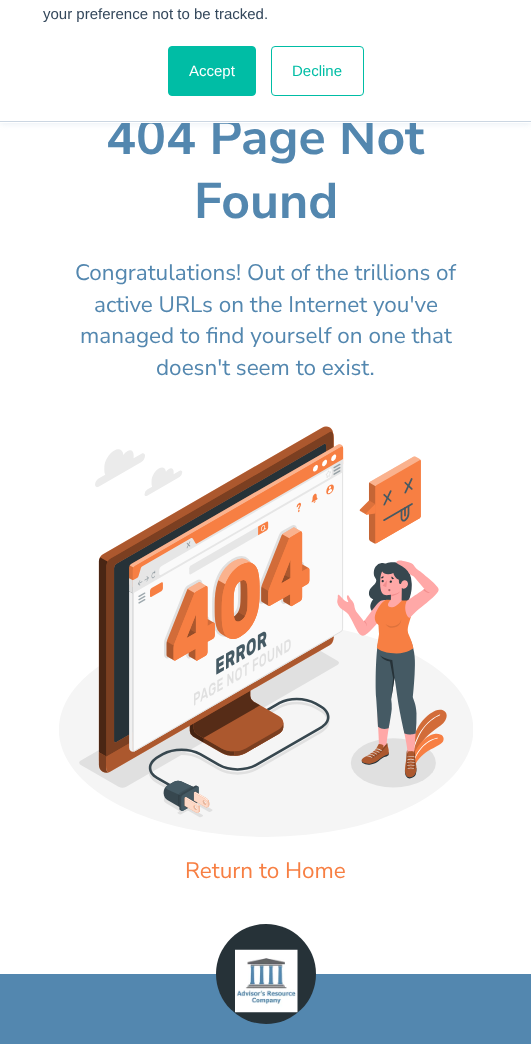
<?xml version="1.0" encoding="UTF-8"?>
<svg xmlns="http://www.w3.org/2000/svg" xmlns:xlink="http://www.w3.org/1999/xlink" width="531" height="1044">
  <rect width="100%" height="100%" fill="#ffffff" />
  <rect y="-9" width="531" height="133" fill="#eaf0f6" filter="blur(3px)" />
  <image x="59" y="426" width="414" height="411" xlink:href="image1.png" />
  <rect y="974" width="531" height="70" fill="#5387af" />
  <circle cx="266" cy="974" r="50" fill="#263238" />
  <image x="235" y="949" width="63" height="64" xlink:href="image2.png" />
  <text x="106" y="154" style="font-family: Nunito Sans; font-size: 50px; font-weight: bold; fill: #5387af">404 Page Not</text>
  <rect width="531" height="123" fill="#ffffff" />
  <rect x="271.5" y="46.5" width="92" height="49" rx="3.5" fill="none" stroke="#00bda5" />
  <text x="292" y="76" style="font-family: Liberation Sans; font-size: 15px; fill: #00bda5">Decline</text>
  <rect x="168.5" y="46.5" width="87" height="49" rx="3.5" fill="#00bda5" stroke="#00bda5" />
  <text x="189" y="76" style="font-family: Liberation Sans; font-size: 15px; fill: #ffffff">Accept</text>
  <text x="43" y="19" style="font-family: Liberation Sans; font-size: 15px; fill: #33475b">your preference not to be tracked.</text>
  <rect y="121" width="531" height="1" fill="#cbd6e2" />
  <text x="194" y="218" style="font-family: Nunito Sans; font-size: 50px; font-weight: bold; fill: #5387af">Found</text>
  <text x="75" y="280" style="font-family: Nunito Sans; font-size: 22.5px; fill: #5387af">Congratulations! Out of the trillions of</text>
  <text x="94" y="312" style="font-family: Nunito Sans; font-size: 22.5px; fill: #5387af">active URLs on the Internet you've</text>
  <text x="80" y="343" style="font-family: Nunito Sans; font-size: 22.5px; fill: #5387af">managed to find yourself on one that</text>
  <text x="156" y="375" style="font-family: Nunito Sans; font-size: 22.5px; fill: #5387af">doesn't seem to exist.</text>
  <text x="185" y="878" style="font-family: Nunito Sans; font-size: 22.5px; fill: #f77f43">Return to Home</text>
</svg>
